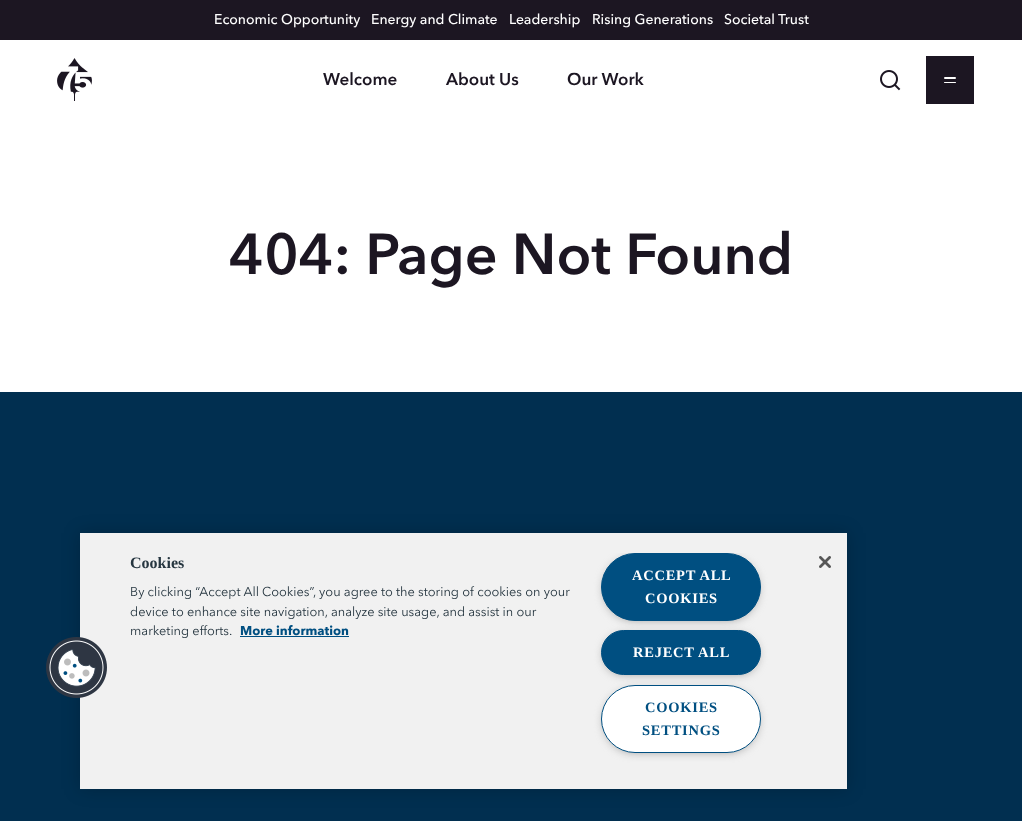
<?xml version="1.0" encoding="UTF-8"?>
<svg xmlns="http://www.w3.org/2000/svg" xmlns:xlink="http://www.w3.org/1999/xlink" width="1022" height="821">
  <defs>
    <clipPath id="clip1"><rect x="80" y="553" width="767" height="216" /></clipPath>
  </defs>
  <rect width="100%" height="100%" fill="#ffffff" />
  <rect width="1022" height="40" fill="#1c1622" />
  <image x="57" y="58" width="35" height="43" xlink:href="image1.png" />
  <image x="880" y="70" width="21" height="21" xlink:href="image2.png" />
  <rect x="926" y="56" width="48" height="48" fill="#1c1622" />
  <rect x="944" y="77" width="12" height="2" rx="1" fill="#ffffff" />
  <rect x="944" y="82" width="12" height="1" rx="0.5" fill="#ffffff" />
  <rect y="392" width="1022" height="429" fill="#012f50" />
  <rect x="80" y="533" width="767" height="256" fill="#000000" fill-opacity="0.2" filter="blur(9px)" />
  <rect x="80" y="533" width="767" height="256" fill="#f1f1f1" />
  <image x="46" y="637" width="61" height="61" xlink:href="image3.png" />
  <rect x="240" y="636" width="109" height="1" fill="#004f81" />
  <g clip-path="url(#clip1)">
    <rect x="604" y="558" width="154" height="62" rx="31" fill="#999999" filter="blur(5px)" />
  </g>
  <rect x="601.5" y="553.5" width="159" height="67" rx="33.5" fill="#004f81" stroke="#004f81" />
  <rect x="604" y="635" width="154" height="39" rx="19.5" fill="#999999" filter="blur(5px)" />
  <rect x="601.5" y="630.5" width="159" height="44" rx="22" fill="#004f81" stroke="#004f81" />
  <rect x="604" y="690" width="154" height="62" rx="31" fill="#999999" filter="blur(5px)" />
  <rect x="601.5" y="685.5" width="159" height="67" rx="33.5" fill="#ffffff" stroke="#004f81" />
  <image x="819" y="556" width="12" height="12" xlink:href="image4.png" />
  <text x="214" y="24" style="font-family: Avenir Next; font-size: 14px; font-weight: 500; fill: #ffffff">Economic Opportunity</text>
  <text x="371" y="24" style="font-family: Avenir Next; font-size: 14px; font-weight: 500; fill: #ffffff">Energy and Climate</text>
  <text x="509" y="24" style="font-family: Avenir Next; font-size: 14px; font-weight: 500; fill: #ffffff">Leadership</text>
  <text x="592" y="24" style="font-family: Avenir Next; font-size: 14px; font-weight: 500; fill: #ffffff">Rising Generations</text>
  <text x="724" y="24" style="font-family: Avenir Next; font-size: 14px; font-weight: 500; fill: #ffffff">Societal Trust</text>
  <text x="323" y="85" style="font-family: Avenir Next; font-size: 17px; font-weight: 600; fill: #1c1622">Welcome</text>
  <text x="446" y="85" style="font-family: Avenir Next; font-size: 17px; font-weight: 600; fill: #1c1622">About Us</text>
  <text x="567" y="85" style="font-family: Avenir Next; font-size: 17px; font-weight: 600; fill: #1c1622">Our Work</text>
  <text x="229" y="274" style="font-family: Avenir Next; font-size: 57.25px; font-weight: 600; fill: #1c1622">404: Page Not Found</text>
  <text x="130" y="568" style="font-family: Liberation Serif; font-size: 16px; font-weight: bold; fill: #263640">Cookies</text>
  <text x="130" y="596" style="font-family: Avenir Next; font-size: 12.8px; fill: #263640">By clicking “Accept All Cookies”, you agree to the storing of cookies on your</text>
  <text x="130" y="616" style="font-family: Avenir Next; font-size: 12.8px; fill: #263640">device to enhance site navigation, analyze site usage, and assist in our</text>
  <text x="130" y="635" style="font-family: Avenir Next; font-size: 12.8px; fill: #263640">marketing efforts.</text>
  <text x="240" y="635" style="font-family: Avenir Next; font-size: 12.8px; font-weight: bold; fill: #004f81">More information</text>
  <text x="632" y="580" style="font-family: Liberation Serif; font-size: 14.5px; font-weight: bold; letter-spacing: 0.75px; fill: #ffffff">ACCEPT ALL</text>
  <text x="645" y="603" style="font-family: Liberation Serif; font-size: 14.5px; font-weight: bold; letter-spacing: 0.75px; fill: #ffffff">COOKIES</text>
  <text x="633" y="657" style="font-family: Liberation Serif; font-size: 14.5px; font-weight: bold; letter-spacing: 0.75px; fill: #ffffff">REJECT ALL</text>
  <text x="645" y="712" style="font-family: Liberation Serif; font-size: 14.5px; font-weight: bold; letter-spacing: 0.75px; fill: #004f81">COOKIES</text>
  <text x="642" y="735" style="font-family: Liberation Serif; font-size: 14.5px; font-weight: bold; letter-spacing: 0.75px; fill: #004f81">SETTINGS</text>
</svg>
